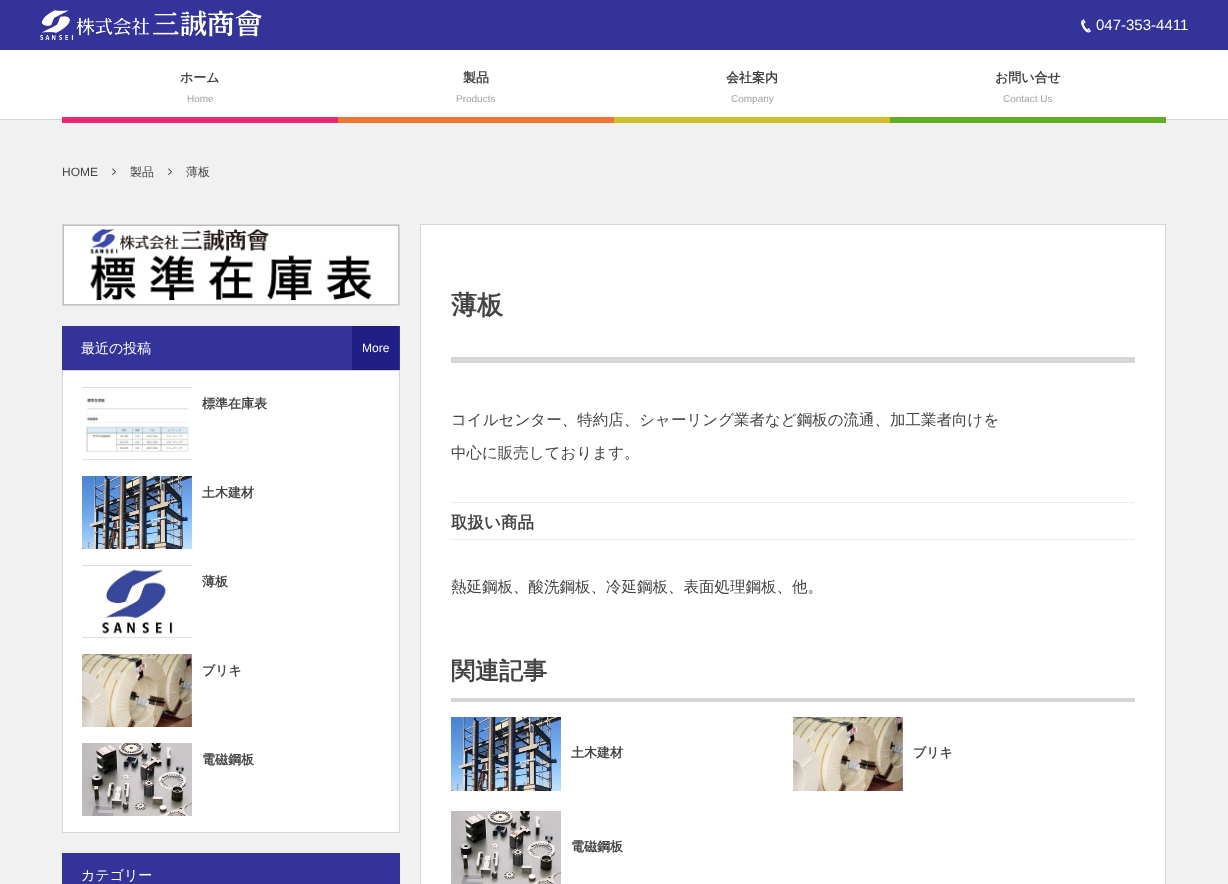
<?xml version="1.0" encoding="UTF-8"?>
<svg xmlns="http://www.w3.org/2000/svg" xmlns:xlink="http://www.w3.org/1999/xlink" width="1228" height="884">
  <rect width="100%" height="100%" fill="#f1f1f1" />
  <rect y="50" width="1228" height="69" fill="#ffffff" />
  <rect width="1228" height="50" fill="#333399" />
  <image x="40" y="10" width="222" height="30" xlink:href="image1.png" />
  <image x="1081" y="19" width="10" height="14" xlink:href="image2.png" />
  <rect y="119" width="1228" height="1" fill="#d6d6d6" />
  <rect x="62" y="117" width="276" height="6" fill="#f02475" />
  <rect x="338" y="117" width="276" height="6" fill="#f27435" />
  <rect x="614" y="117" width="276" height="6" fill="#cfbe27" />
  <rect x="890" y="117" width="276" height="6" fill="#61ae24" />
  <image x="112" y="168" width="4" height="7" xlink:href="image3.png" />
  <image x="168" y="168" width="4" height="7" xlink:href="image3.png" />
  <rect x="62.5" y="224.5" width="337" height="81" fill="none" stroke="#d6d6d6" />
  <image x="63" y="225" width="336" height="80" xlink:href="image4.png" />
  <rect x="62" y="326" width="338" height="44" fill="#333399" />
  <rect x="352" y="326" width="47" height="44" fill="#1f1f85" />
  <rect x="62.5" y="370.5" width="337" height="462" fill="#ffffff" stroke="#d6d6d6" />
  <image x="82" y="387" width="110" height="73" xlink:href="image5.png" />
  <image x="82" y="476" width="110" height="73" xlink:href="image6.png" />
  <image x="82" y="565" width="110" height="73" xlink:href="image7.png" />
  <image x="82" y="654" width="110" height="73" xlink:href="image8.png" />
  <image x="82" y="743" width="110" height="73" xlink:href="image9.png" />
  <rect x="62" y="853" width="338" height="31" fill="#333399" />
  <rect x="420.5" y="224.5" width="745" height="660" fill="#ffffff" stroke="#d6d6d6" />
  <rect x="451" y="357" width="684" height="6" fill="#d6d6d6" />
  <path d="M 451 502.5 h 684" fill="none" stroke="#d6d6eb" stroke-dasharray="1 1" />
  <path d="M 451 539.5 h 684" fill="none" stroke="#d6d6eb" stroke-dasharray="1 1" />
  <rect x="451" y="698" width="684" height="4" fill="#d6d6d6" />
  <image x="451" y="717" width="110" height="74" xlink:href="image10.png" />
  <image x="793" y="717" width="110" height="74" xlink:href="image11.png" />
  <image x="451" y="811" width="110" height="73" xlink:href="image12.png" />
  <text x="1096" y="30" style="font-family: Liberation Sans; font-size: 15px; fill: #ffffff">047-353-4411</text>
  <text x="180" y="82" style="font-family: WenQuanYi Zen Hei; font-size: 13px; font-weight: bold; fill: #444444">ホーム</text>
  <text x="187" y="102" style="font-family: Liberation Sans; font-size: 10px; fill: #a2a2a2">Home</text>
  <text x="463" y="82" style="font-family: WenQuanYi Zen Hei; font-size: 13px; font-weight: bold; fill: #444444">製品</text>
  <text x="456" y="102" style="font-family: Liberation Sans; font-size: 10px; fill: #a2a2a2">Products</text>
  <text x="726" y="82" style="font-family: WenQuanYi Zen Hei; font-size: 13px; font-weight: bold; fill: #444444">会社案内</text>
  <text x="731" y="102" style="font-family: Liberation Sans; font-size: 10px; fill: #a2a2a2">Company</text>
  <text x="995" y="82" style="font-family: WenQuanYi Zen Hei; font-size: 13px; font-weight: bold; fill: #444444">お問い合せ</text>
  <text x="1003" y="102" style="font-family: Liberation Sans; font-size: 10px; fill: #a2a2a2">Contact Us</text>
  <text x="62" y="176" style="font-family: Liberation Sans; font-size: 12px; fill: #444444">HOME</text>
  <text x="130" y="176" style="font-family: WenQuanYi Zen Hei; font-size: 12px; font-weight: 500; fill: #444444">製品</text>
  <text x="186" y="176" style="font-family: WenQuanYi Zen Hei; font-size: 12px; font-weight: 500; fill: #444444">薄板</text>
  <text x="81" y="353" style="font-family: WenQuanYi Zen Hei; font-size: 14px; font-weight: 500; fill: #ffffff">最近の投稿</text>
  <text x="362" y="352" style="font-family: Liberation Sans; font-size: 12px; fill: #ffffff">More</text>
  <text x="202" y="408" style="font-family: WenQuanYi Zen Hei; font-size: 13px; font-weight: bold; fill: #444444">標準在庫表</text>
  <text x="202" y="497" style="font-family: WenQuanYi Zen Hei; font-size: 13px; font-weight: bold; fill: #444444">土木建材</text>
  <text x="202" y="586" style="font-family: WenQuanYi Zen Hei; font-size: 13px; font-weight: bold; fill: #444444">薄板</text>
  <text x="202" y="675" style="font-family: WenQuanYi Zen Hei; font-size: 13px; font-weight: bold; fill: #444444">ブリキ</text>
  <text x="202" y="764" style="font-family: WenQuanYi Zen Hei; font-size: 13px; font-weight: bold; fill: #444444">電磁鋼板</text>
  <text x="81" y="880" style="font-family: WenQuanYi Zen Hei; font-size: 14px; font-weight: 500; fill: #ffffff">カテゴリー</text>
  <text x="451" y="314" style="font-family: WenQuanYi Zen Hei; font-size: 26px; font-weight: bold; fill: #444444">薄板</text>
  <text x="451" y="425" style="font-family: WenQuanYi Zen Hei; font-size: 15.5px; font-weight: 500; fill: #444444">コイルセンター、特約店、シャーリング業者など鋼板の流通、加工業者向けを</text>
  <text x="451" y="458" style="font-family: WenQuanYi Zen Hei; font-size: 15.5px; font-weight: 500; fill: #444444">中心に販売しております。</text>
  <text x="451" y="528" style="font-family: WenQuanYi Zen Hei; font-size: 16.5px; font-weight: bold; fill: #444444">取扱い商品</text>
  <text x="451" y="592" style="font-family: WenQuanYi Zen Hei; font-size: 15.5px; font-weight: 500; fill: #444444">熱延鋼板、酸洗鋼板、冷延鋼板、表面処理鋼板、他。</text>
  <text x="451" y="679" style="font-family: WenQuanYi Zen Hei; font-size: 24px; font-weight: bold; fill: #444444">関連記事</text>
  <text x="571" y="757" style="font-family: WenQuanYi Zen Hei; font-size: 13px; font-weight: bold; fill: #444444">土木建材</text>
  <text x="913" y="757" style="font-family: WenQuanYi Zen Hei; font-size: 13px; font-weight: bold; fill: #444444">ブリキ</text>
  <text x="571" y="851" style="font-family: WenQuanYi Zen Hei; font-size: 13px; font-weight: bold; fill: #444444">電磁鋼板</text>
</svg>
